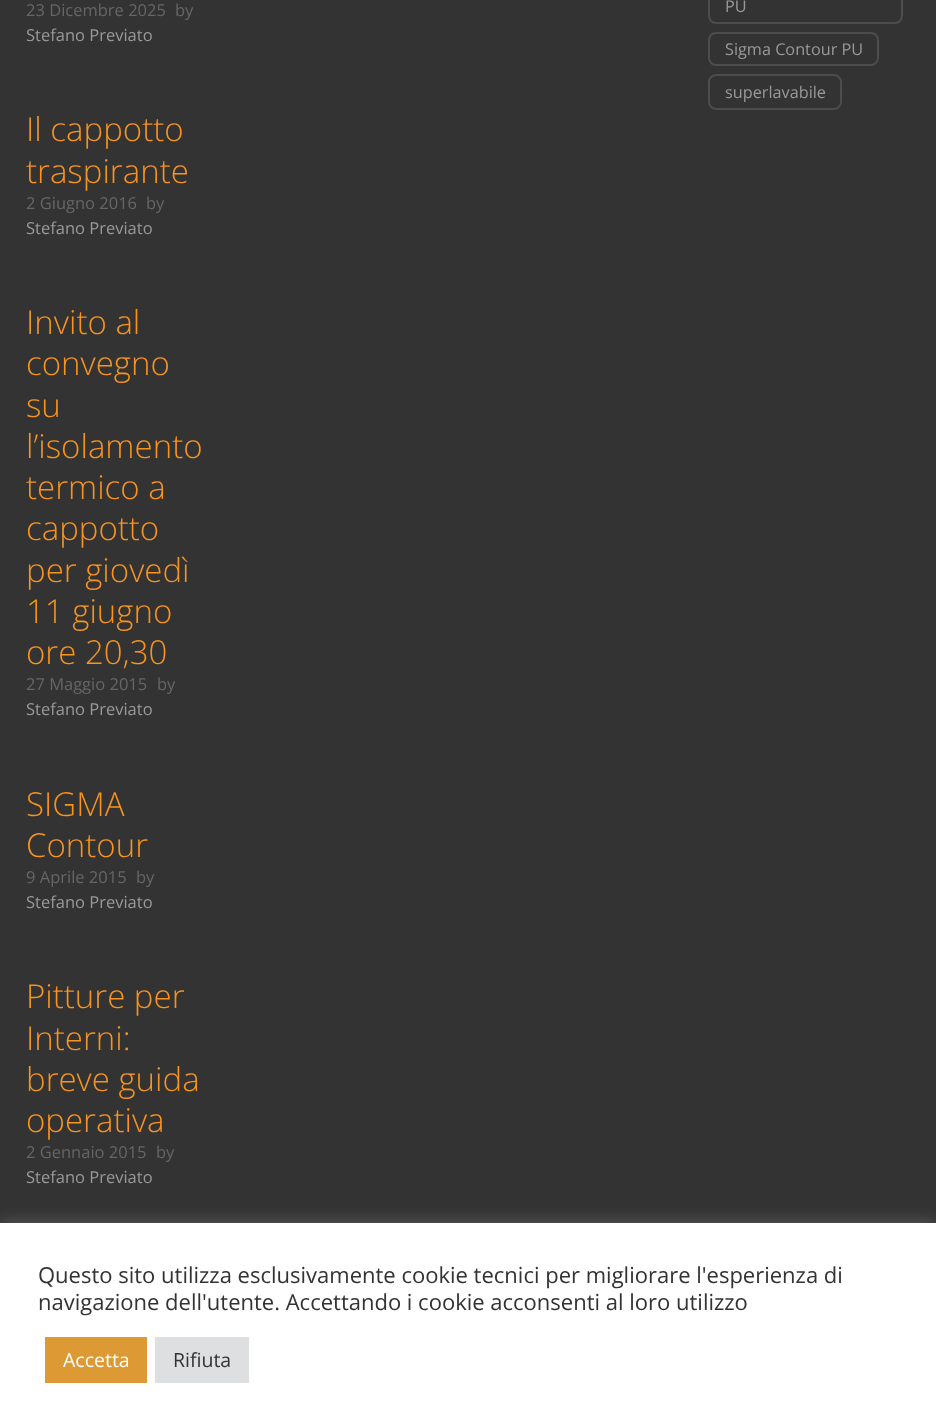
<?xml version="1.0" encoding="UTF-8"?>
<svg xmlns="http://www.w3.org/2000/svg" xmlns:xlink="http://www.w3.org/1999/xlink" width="936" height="1427">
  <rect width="100%" height="100%" fill="#333333" />
  <rect x="709" y="-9" width="193" height="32" rx="7" fill="none" stroke="#4d4d4d" stroke-width="2" />
  <rect x="709" y="33" width="169" height="32" rx="7" fill="none" stroke="#4d4d4d" stroke-width="2" />
  <rect x="709" y="75" width="132" height="34" rx="7" fill="none" stroke="#4d4d4d" stroke-width="2" />
  <rect y="1221" width="936" height="206" fill="#acabab" fill-opacity="0.3" filter="blur(7.5px)" />
  <rect y="1223" width="936" height="204" fill="#ffffff" />
  <rect x="45" y="1337" width="102" height="46" fill="#dd9933" />
  <rect x="155" y="1337" width="94" height="46" fill="#dedfe0" />
  <text x="26" y="16" style="font-family: Open Sans; font-size: 16.5px; fill: #666666">23 Dicembre 2025</text>
  <text x="175" y="16" style="font-family: Open Sans; font-size: 16.5px; fill: #666666">by</text>
  <text x="26" y="41" style="font-family: Open Sans; font-size: 16.5px; fill: #999999">Stefano Previato</text>
  <text x="26" y="141" style="font-family: Open Sans; font-size: 33px; font-weight: 300; fill: #f7931e">Il cappotto</text>
  <text x="26" y="183" style="font-family: Open Sans; font-size: 33px; font-weight: 300; fill: #f7931e">traspirante</text>
  <text x="26" y="209" style="font-family: Open Sans; font-size: 16.5px; fill: #666666">2 Giugno 2016</text>
  <text x="146" y="209" style="font-family: Open Sans; font-size: 16.5px; fill: #666666">by</text>
  <text x="26" y="234" style="font-family: Open Sans; font-size: 16.5px; fill: #999999">Stefano Previato</text>
  <text x="26" y="334" style="font-family: Open Sans; font-size: 33px; font-weight: 300; fill: #f7931e">Invito al</text>
  <text x="26" y="375" style="font-family: Open Sans; font-size: 33px; font-weight: 300; fill: #f7931e">convegno</text>
  <text x="26" y="417" style="font-family: Open Sans; font-size: 33px; font-weight: 300; fill: #f7931e">su</text>
  <text x="26" y="458" style="font-family: Open Sans; font-size: 33px; font-weight: 300; fill: #f7931e">l’isolamento</text>
  <text x="26" y="499" style="font-family: Open Sans; font-size: 33px; font-weight: 300; fill: #f7931e">termico a</text>
  <text x="26" y="540" style="font-family: Open Sans; font-size: 33px; font-weight: 300; fill: #f7931e">cappotto</text>
  <text x="26" y="582" style="font-family: Open Sans; font-size: 33px; font-weight: 300; fill: #f7931e">per giovedì</text>
  <text x="26" y="623" style="font-family: Open Sans; font-size: 33px; font-weight: 300; fill: #f7931e">11 giugno</text>
  <text x="26" y="664" style="font-family: Open Sans; font-size: 33px; font-weight: 300; fill: #f7931e">ore 20,30</text>
  <text x="26" y="690" style="font-family: Open Sans; font-size: 16.5px; fill: #666666">27 Maggio 2015</text>
  <text x="157" y="690" style="font-family: Open Sans; font-size: 16.5px; fill: #666666">by</text>
  <text x="26" y="715" style="font-family: Open Sans; font-size: 16.5px; fill: #999999">Stefano Previato</text>
  <text x="26" y="816" style="font-family: Open Sans; font-size: 33px; font-weight: 300; fill: #f7931e">SIGMA</text>
  <text x="26" y="857" style="font-family: Open Sans; font-size: 33px; font-weight: 300; fill: #f7931e">Contour</text>
  <text x="26" y="883" style="font-family: Open Sans; font-size: 16.5px; fill: #666666">9 Aprile 2015</text>
  <text x="136" y="883" style="font-family: Open Sans; font-size: 16.5px; fill: #666666">by</text>
  <text x="26" y="908" style="font-family: Open Sans; font-size: 16.5px; fill: #999999">Stefano Previato</text>
  <text x="26" y="1008" style="font-family: Open Sans; font-size: 33px; font-weight: 300; fill: #f7931e">Pitture per</text>
  <text x="26" y="1050" style="font-family: Open Sans; font-size: 33px; font-weight: 300; fill: #f7931e">Interni:</text>
  <text x="26" y="1091" style="font-family: Open Sans; font-size: 33px; font-weight: 300; fill: #f7931e">breve guida</text>
  <text x="26" y="1132" style="font-family: Open Sans; font-size: 33px; font-weight: 300; fill: #f7931e">operativa</text>
  <text x="26" y="1158" style="font-family: Open Sans; font-size: 16.5px; fill: #666666">2 Gennaio 2015</text>
  <text x="156" y="1158" style="font-family: Open Sans; font-size: 16.5px; fill: #666666">by</text>
  <text x="26" y="1183" style="font-family: Open Sans; font-size: 16.5px; fill: #999999">Stefano Previato</text>
  <text x="725" y="12" style="font-family: Open Sans; font-size: 16.25px; fill: #999999">PU</text>
  <text x="725" y="55" style="font-family: Open Sans; font-size: 16.25px; fill: #999999">Sigma Contour PU</text>
  <text x="725" y="98" style="font-family: Open Sans; font-size: 16.25px; fill: #999999">superlavabile</text>
  <text x="38" y="1283" style="font-family: Open Sans; font-size: 22px; fill: #333333">Questo sito utilizza esclusivamente cookie tecnici per migliorare l'esperienza di</text>
  <text x="38" y="1310" style="font-family: Open Sans; font-size: 22px; fill: #333333">navigazione dell'utente. Accettando i cookie acconsenti al loro utilizzo</text>
  <text x="63" y="1367" style="font-family: Open Sans; font-size: 19.5px; fill: #ffffff">Accetta</text>
  <text x="173" y="1367" style="font-family: Open Sans; font-size: 19.5px; fill: #333333">Rifiuta</text>
</svg>
